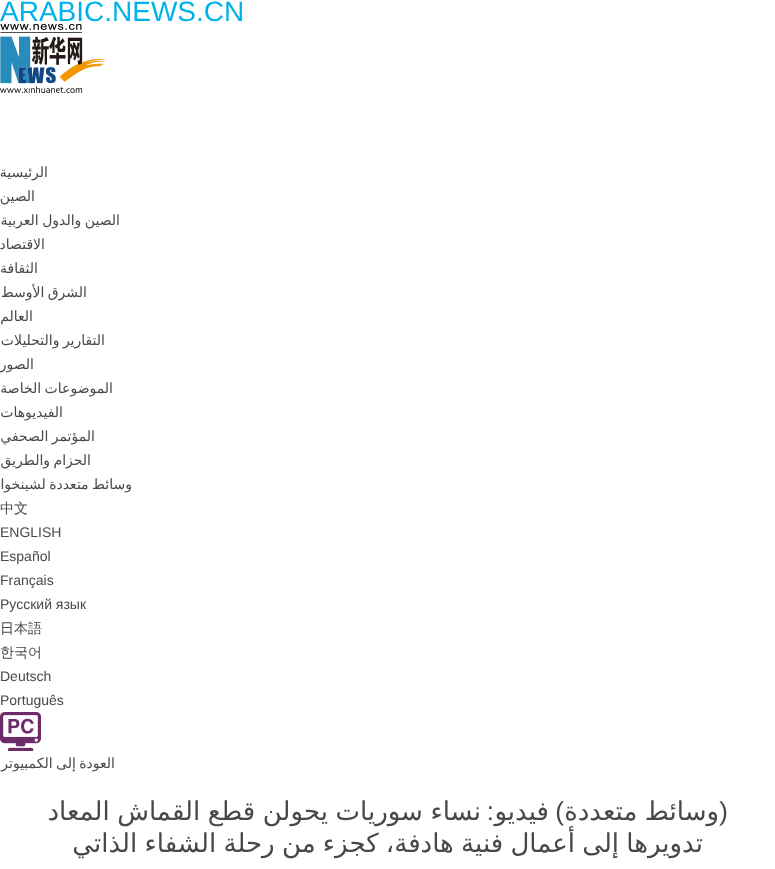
<?xml version="1.0" encoding="UTF-8"?>
<svg xmlns="http://www.w3.org/2000/svg" xmlns:xlink="http://www.w3.org/1999/xlink" width="775" height="869">
  <rect width="100%" height="100%" fill="#ffffff" />
  <image x="0" y="24" width="106" height="69" xlink:href="image1.png" />
  <image x="0" y="712" width="41" height="39" xlink:href="image2.png" />
  <text x="0" y="21" style="font-family: Liberation Sans; font-size: 28px; fill: #00b1eb">ARABIC.NEWS.CN</text>
  <text x="48" y="177" style="font-family: DejaVu Sans; font-size: 14px; direction: rtl; fill: #484848">الرئيسية</text>
  <text x="35" y="201" style="font-family: DejaVu Sans; font-size: 14px; direction: rtl; fill: #484848">الصين</text>
  <text x="120" y="225" word-spacing="-1" style="font-family: DejaVu Sans; font-size: 14px; direction: rtl; fill: #484848">الصين والدول العربية</text>
  <text x="45" y="249" style="font-family: DejaVu Sans; font-size: 14px; direction: rtl; fill: #484848">الاقتصاد</text>
  <text x="38" y="273" style="font-family: DejaVu Sans; font-size: 14px; direction: rtl; fill: #484848">الثقافة</text>
  <text x="87" y="297" word-spacing="-1" style="font-family: DejaVu Sans; font-size: 14px; direction: rtl; fill: #484848">الشرق الأوسط</text>
  <text x="33" y="321" style="font-family: DejaVu Sans; font-size: 14px; direction: rtl; fill: #484848">العالم</text>
  <text x="105" y="345" word-spacing="-1" style="font-family: DejaVu Sans; font-size: 14px; direction: rtl; fill: #484848">التقارير والتحليلات</text>
  <text x="34" y="369" style="font-family: DejaVu Sans; font-size: 14px; direction: rtl; fill: #484848">الصور</text>
  <text x="113" y="393" word-spacing="-1" style="font-family: DejaVu Sans; font-size: 14px; direction: rtl; fill: #484848">الموضوعات الخاصة</text>
  <text x="63" y="417" style="font-family: DejaVu Sans; font-size: 14px; direction: rtl; fill: #484848">الفيديوهات</text>
  <text x="95" y="441" word-spacing="-1" style="font-family: DejaVu Sans; font-size: 14px; direction: rtl; fill: #484848">المؤتمر الصحفي</text>
  <text x="91" y="465" word-spacing="-1" style="font-family: DejaVu Sans; font-size: 14px; direction: rtl; fill: #484848">الحزام والطريق</text>
  <text x="132" y="489" word-spacing="-1" style="font-family: DejaVu Sans; font-size: 14px; direction: rtl; fill: #484848">وسائط متعددة لشينخوا</text>
  <text x="0" y="513" style="font-family: WenQuanYi Zen Hei; font-size: 14px; font-weight: 500; fill: #484848">中文</text>
  <text x="0" y="537" style="font-family: Liberation Sans; font-size: 14px; fill: #484848">ENGLISH</text>
  <text x="0" y="561" style="font-family: Liberation Sans; font-size: 14px; fill: #484848">Español</text>
  <text x="0" y="585" style="font-family: Liberation Sans; font-size: 14px; fill: #484848">Français</text>
  <text x="0" y="609" style="font-family: Liberation Sans; font-size: 14px; fill: #484848">Русский язык</text>
  <text x="0" y="633" style="font-family: WenQuanYi Zen Hei; font-size: 14px; font-weight: 500; fill: #484848">日本語</text>
  <text x="0" y="657" style="font-family: WenQuanYi Zen Hei; font-size: 14px; font-weight: 500; fill: #484848">한국어</text>
  <text x="0" y="681" style="font-family: Liberation Sans; font-size: 14px; fill: #484848">Deutsch</text>
  <text x="0" y="705" style="font-family: Liberation Sans; font-size: 14px; fill: #484848">Português</text>
  <text x="115" y="768" word-spacing="-1" style="font-family: DejaVu Sans; font-size: 14px; direction: rtl; fill: #484848">العودة إلى الكمبيوتر</text>
  <text x="728" y="820" style="font-family: Liberation Sans; font-size: 26px; direction: rtl; fill: #484848">(</text>
  <text x="719" y="820" word-spacing="-0.75" style="font-family: DejaVu Sans; font-size: 26px; direction: rtl; fill: #484848">وسائط متعددة</text>
  <text x="564" y="820" style="font-family: Liberation Sans; font-size: 26px; direction: rtl; fill: #484848">)</text>
  <text x="549" y="820" style="font-family: DejaVu Sans; font-size: 26px; direction: rtl; fill: #484848">فيديو</text>
  <text x="494" y="820" style="font-family: Liberation Sans; font-size: 26px; direction: rtl; fill: #484848">:</text>
  <text x="481" y="820" word-spacing="-0.75" style="font-family: DejaVu Sans; font-size: 26px; direction: rtl; fill: #484848">نساء سوريات يحولن قطع القماش المعاد</text>
  <text x="703" y="852" word-spacing="-1" style="font-family: DejaVu Sans; font-size: 26px; direction: rtl; fill: #484848">تدويرها إلى أعمال فنية هادفة، كجزء من رحلة الشفاء الذاتي</text>
</svg>
